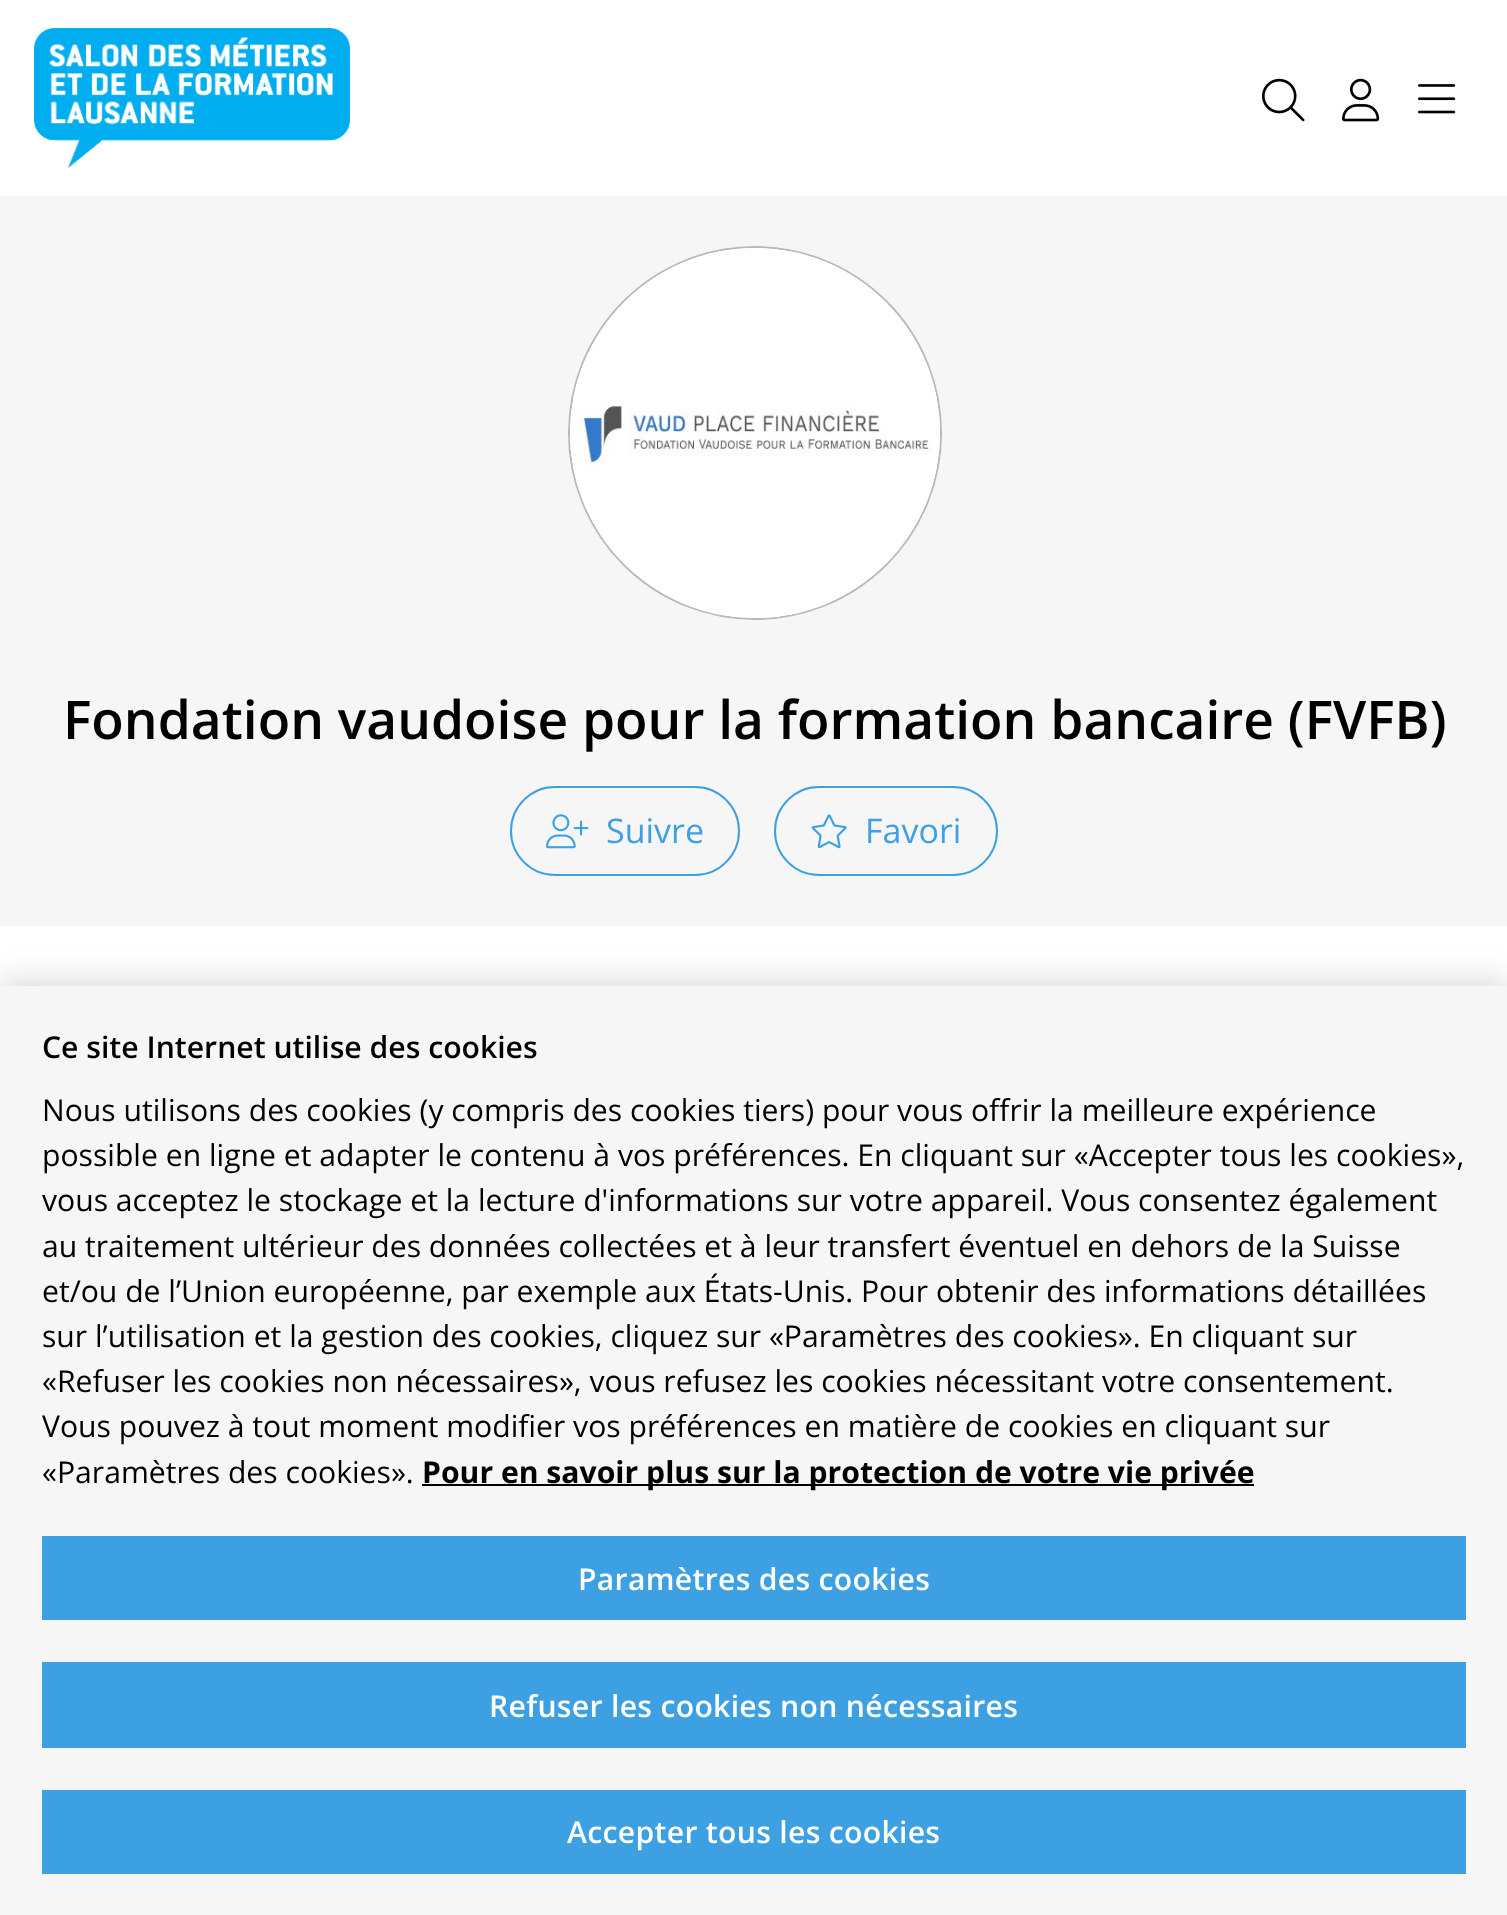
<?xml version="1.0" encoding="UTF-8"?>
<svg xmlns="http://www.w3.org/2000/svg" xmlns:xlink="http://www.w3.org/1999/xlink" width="1507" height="1915">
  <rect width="100%" height="100%" fill="#ffffff" />
  <image x="34" y="28" width="316" height="140" xlink:href="image1.png" />
  <image x="1262" y="78" width="43" height="44" xlink:href="image2.png" />
  <image x="1342" y="78" width="38" height="44" xlink:href="image3.png" />
  <image x="1418" y="84" width="38" height="30" xlink:href="image4.png" />
  <rect y="196" width="1507" height="730" fill="#f6f6f6" />
  <circle cx="755" cy="433" r="186" fill="none" stroke="#b9b9b9" stroke-width="2" />
  <circle cx="755" cy="433" r="185" fill="#ffffff" />
  <image x="570" y="248" width="370" height="370" xlink:href="image5.png" />
  <rect x="511" y="787" width="228" height="88" rx="44" fill="none" stroke="#3da0e3" stroke-width="2" />
  <image x="546" y="814" width="43" height="35" xlink:href="image6.png" />
  <rect x="775" y="787" width="222" height="88" rx="44" fill="none" stroke="#3da0e3" stroke-width="2" />
  <image x="811" y="814" width="36" height="35" xlink:href="image7.png" />
  <rect y="986" width="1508" height="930" fill="#000000" fill-opacity="0.2" filter="blur(18px)" />
  <rect y="986" width="1507" height="929" fill="#f6f6f6" />
  <rect x="422" y="1484" width="832" height="2" fill="#000000" />
  <rect x="42" y="1536" width="1424" height="84" fill="#3da0e3" />
  <rect x="42" y="1662" width="1424" height="86" fill="#3da0e3" />
  <rect x="42" y="1790" width="1424" height="84" fill="#3da0e3" />
  <text x="63" y="739" style="font-family: Open Sans; font-size: 53.25px; font-weight: 600; fill: #000000">Fondation vaudoise pour la formation bancaire (FVFB)</text>
  <text x="606" y="843" style="font-family: Open Sans; font-size: 34px; fill: #3da0e3">Suivre</text>
  <text x="865" y="843" style="font-family: Open Sans; font-size: 34px; fill: #3da0e3">Favori</text>
  <text x="42" y="1058" style="font-family: Open Sans; font-size: 30.15px; font-weight: 600; fill: #000000">Ce site Internet utilise des cookies</text>
  <text x="42" y="1121" style="font-family: Open Sans; font-size: 30.15px; fill: #000000">Nous utilisons des cookies (y compris des cookies tiers) pour vous offrir la meilleure expérience</text>
  <text x="42" y="1166" style="font-family: Open Sans; font-size: 30.15px; fill: #000000">possible en ligne et adapter le contenu à vos préférences. En cliquant sur «Accepter tous les cookies»,</text>
  <text x="42" y="1211" style="font-family: Open Sans; font-size: 30.15px; fill: #000000">vous acceptez le stockage et la lecture d'informations sur votre appareil. Vous consentez également</text>
  <text x="42" y="1257" style="font-family: Open Sans; font-size: 30.15px; fill: #000000">au traitement ultérieur des données collectées et à leur transfert éventuel en dehors de la Suisse</text>
  <text x="42" y="1302" style="font-family: Open Sans; font-size: 30.15px; fill: #000000">et/ou de l’Union européenne, par exemple aux États-Unis. Pour obtenir des informations détaillées</text>
  <text x="42" y="1347" style="font-family: Open Sans; font-size: 30.15px; fill: #000000">sur l’utilisation et la gestion des cookies, cliquez sur «Paramètres des cookies». En cliquant sur</text>
  <text x="42" y="1392" style="font-family: Open Sans; font-size: 30.15px; fill: #000000">«Refuser les cookies non nécessaires», vous refusez les cookies nécessitant votre consentement.</text>
  <text x="42" y="1437" style="font-family: Open Sans; font-size: 30.15px; fill: #000000">Vous pouvez à tout moment modifier vos préférences en matière de cookies en cliquant sur</text>
  <text x="42" y="1483" style="font-family: Open Sans; font-size: 30.15px; fill: #000000">«Paramètres des cookies».</text>
  <text x="422" y="1483" style="font-family: Open Sans; font-size: 30.15px; font-weight: bold; fill: #000000">Pour en savoir plus sur la protection de votre vie privée</text>
  <text x="578" y="1590" style="font-family: Open Sans; font-size: 30.15px; font-weight: 600; letter-spacing: 0.3px; fill: #ffffff">Paramètres des cookies</text>
  <text x="489" y="1717" style="font-family: Open Sans; font-size: 30.15px; font-weight: 600; letter-spacing: 0.3px; fill: #ffffff">Refuser les cookies non nécessaires</text>
  <text x="567" y="1843" style="font-family: Open Sans; font-size: 30.15px; font-weight: 600; letter-spacing: 0.3px; fill: #ffffff">Accepter tous les cookies</text>
</svg>
